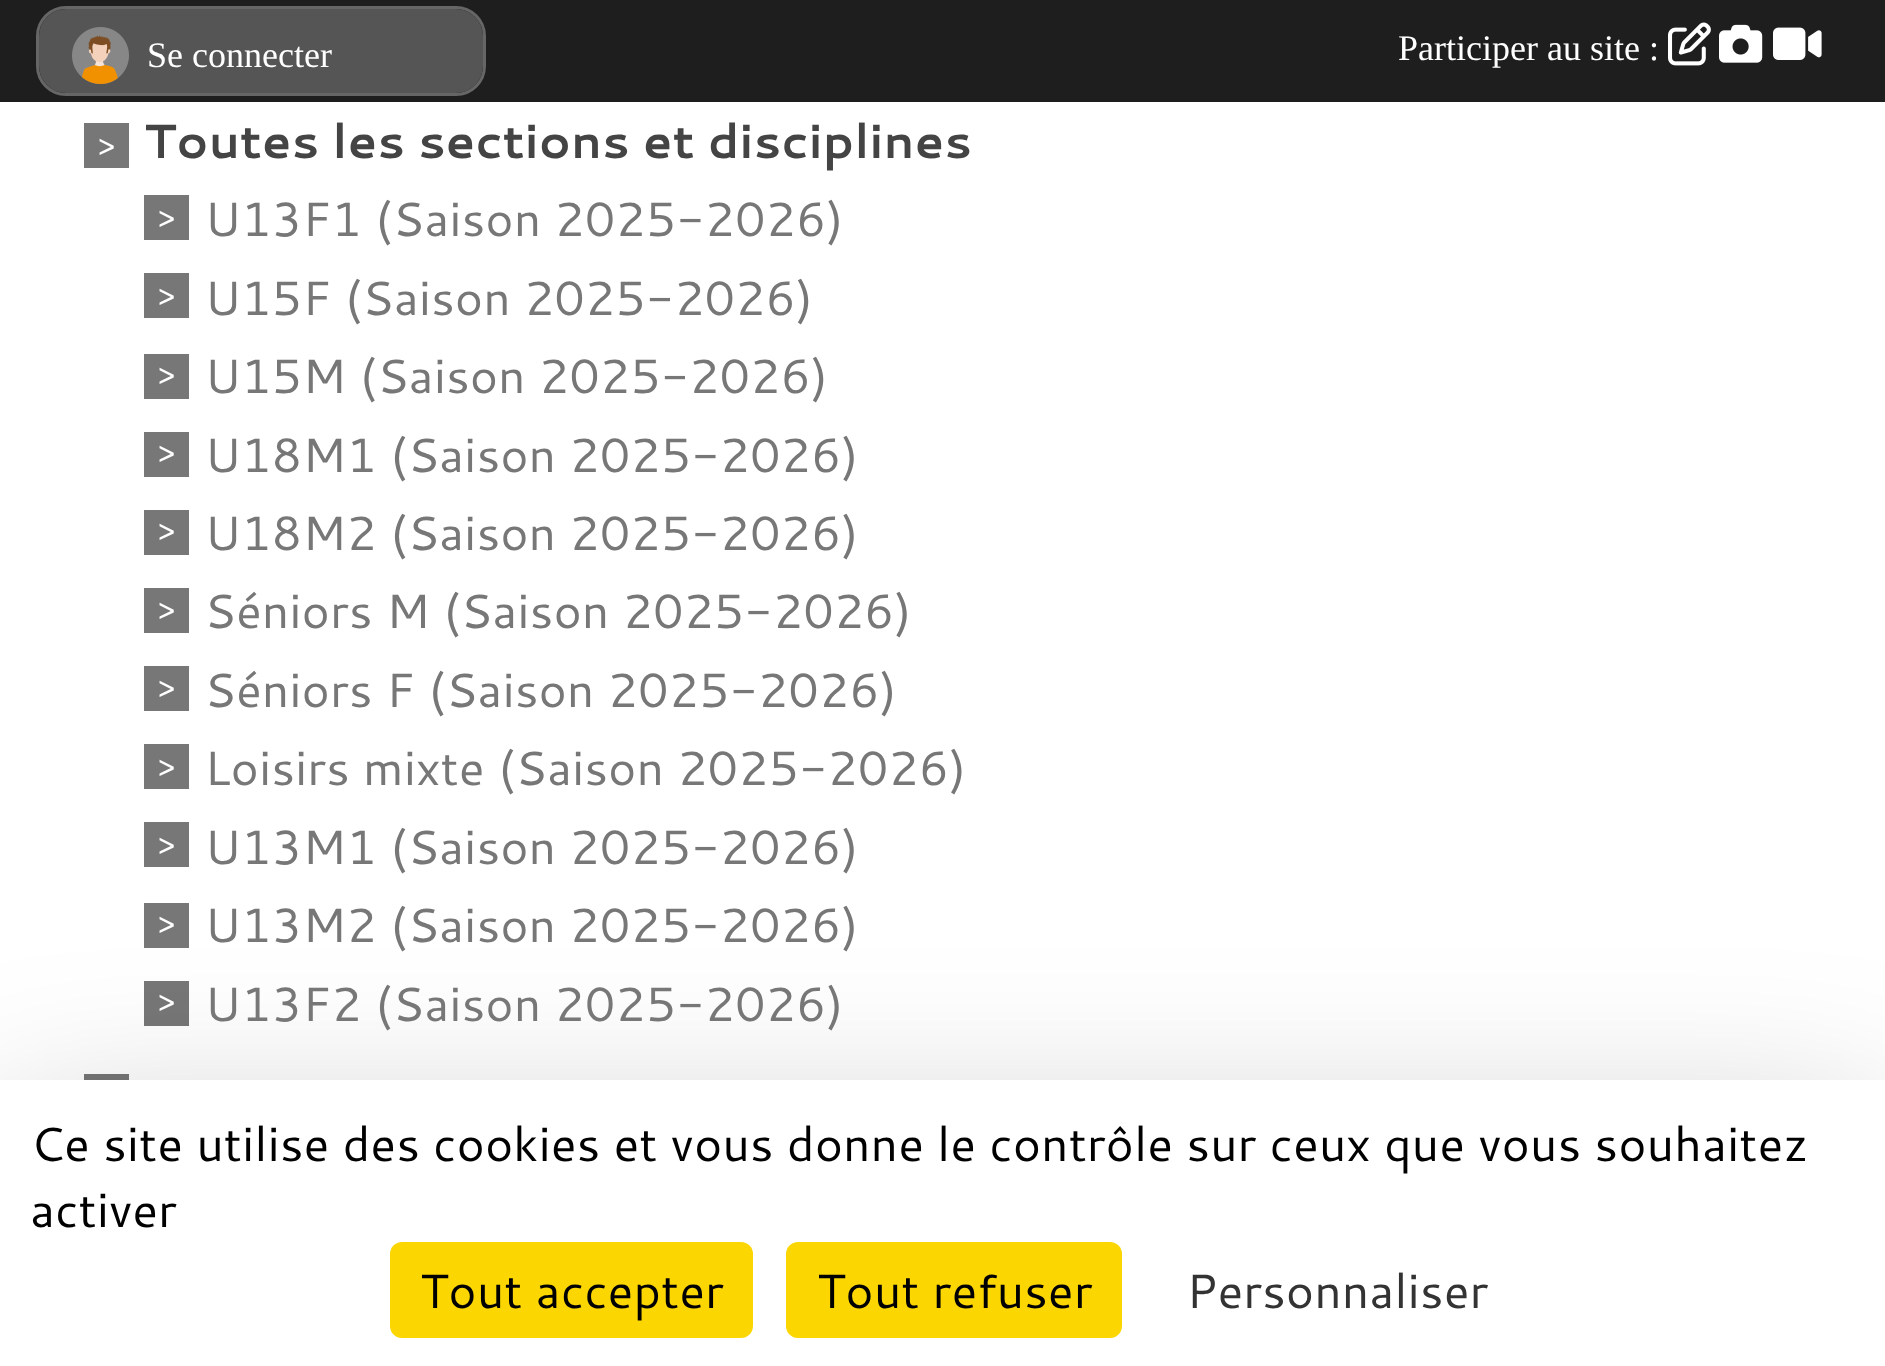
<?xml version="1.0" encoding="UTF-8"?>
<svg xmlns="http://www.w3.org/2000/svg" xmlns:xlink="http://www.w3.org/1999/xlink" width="1885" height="1366">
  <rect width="100%" height="100%" fill="#ffffff" />
  <rect width="1885" height="102" fill="#1e1e1e" />
  <rect x="37.5" y="7.5" width="447" height="87" rx="28.5" fill="none" stroke="#666666" stroke-width="3" />
  <rect x="39" y="9" width="444" height="84" rx="27" fill="#555555" />
  <image x="72" y="27" width="57" height="57" xlink:href="image1.png" />
  <image x="1668" y="22" width="43" height="44" xlink:href="image2.png" />
  <image x="1719" y="24" width="44" height="39" xlink:href="image3.png" />
  <image x="1773" y="27" width="49" height="33" xlink:href="image4.png" />
  <rect x="84" y="123" width="45" height="45" fill="#777777" />
  <rect x="144" y="195" width="45" height="45" fill="#777777" />
  <rect x="144" y="273" width="45" height="45" fill="#777777" />
  <rect x="144" y="354" width="45" height="45" fill="#777777" />
  <rect x="144" y="432" width="45" height="45" fill="#777777" />
  <rect x="144" y="510" width="45" height="45" fill="#777777" />
  <rect x="144" y="588" width="45" height="45" fill="#777777" />
  <rect x="144" y="666" width="45" height="45" fill="#777777" />
  <rect x="144" y="744" width="45" height="45" fill="#777777" />
  <rect x="144" y="822" width="45" height="45" fill="#777777" />
  <rect x="144" y="903" width="45" height="45" fill="#777777" />
  <rect x="144" y="981" width="45" height="45" fill="#777777" />
  <rect x="84" y="1074" width="45" height="6" fill="#777777" />
  <rect y="1140" width="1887" height="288" fill="#000000" fill-opacity="0.25" filter="blur(90px)" />
  <rect y="1080" width="1885" height="286" fill="#ffffff" />
  <rect x="390" y="1242" width="363" height="96" rx="12" fill="#fbd600" />
  <rect x="786" y="1242" width="336" height="96" rx="12" fill="#fbd600" />
  <text x="147" y="67" style="font-family: Liberation Serif; font-size: 36px; fill: #ffffff">Se connecter</text>
  <text x="1398" y="60" style="font-family: Liberation Serif; font-size: 36px; fill: #ffffff">Participer au site :</text>
  <text x="98" y="157" style="font-family: Cantarell; font-size: 33px; fill: #ffffff">&gt;</text>
  <text x="144" y="158" style="font-family: Cantarell; font-size: 48px; font-weight: bold; fill: #444444">Toutes les sections et disciplines</text>
  <text x="158" y="229" style="font-family: Cantarell; font-size: 33px; fill: #ffffff">&gt;</text>
  <text x="204" y="236" style="font-family: Cantarell; font-size: 48px; fill: #777777">U13F1 (Saison 2025-2026)</text>
  <text x="158" y="307" style="font-family: Cantarell; font-size: 33px; fill: #ffffff">&gt;</text>
  <text x="204" y="315" style="font-family: Cantarell; font-size: 48px; fill: #777777">U15F (Saison 2025-2026)</text>
  <text x="158" y="386" style="font-family: Cantarell; font-size: 33px; fill: #ffffff">&gt;</text>
  <text x="204" y="393" style="font-family: Cantarell; font-size: 48px; fill: #777777">U15M (Saison 2025-2026)</text>
  <text x="158" y="464" style="font-family: Cantarell; font-size: 33px; fill: #ffffff">&gt;</text>
  <text x="204" y="472" style="font-family: Cantarell; font-size: 48px; fill: #777777">U18M1 (Saison 2025-2026)</text>
  <text x="158" y="542" style="font-family: Cantarell; font-size: 33px; fill: #ffffff">&gt;</text>
  <text x="204" y="550" style="font-family: Cantarell; font-size: 48px; fill: #777777">U18M2 (Saison 2025-2026)</text>
  <text x="158" y="621" style="font-family: Cantarell; font-size: 33px; fill: #ffffff">&gt;</text>
  <text x="204" y="628" style="font-family: Cantarell; font-size: 48px; fill: #777777">Séniors M (Saison 2025-2026)</text>
  <text x="158" y="699" style="font-family: Cantarell; font-size: 33px; fill: #ffffff">&gt;</text>
  <text x="204" y="707" style="font-family: Cantarell; font-size: 48px; fill: #777777">Séniors F (Saison 2025-2026)</text>
  <text x="158" y="778" style="font-family: Cantarell; font-size: 33px; fill: #ffffff">&gt;</text>
  <text x="204" y="785" style="font-family: Cantarell; font-size: 48px; fill: #777777">Loisirs mixte (Saison 2025-2026)</text>
  <text x="158" y="856" style="font-family: Cantarell; font-size: 33px; fill: #ffffff">&gt;</text>
  <text x="204" y="864" style="font-family: Cantarell; font-size: 48px; fill: #777777">U13M1 (Saison 2025-2026)</text>
  <text x="158" y="935" style="font-family: Cantarell; font-size: 33px; fill: #ffffff">&gt;</text>
  <text x="204" y="942" style="font-family: Cantarell; font-size: 48px; fill: #777777">U13M2 (Saison 2025-2026)</text>
  <text x="158" y="1013" style="font-family: Cantarell; font-size: 33px; fill: #ffffff">&gt;</text>
  <text x="204" y="1021" style="font-family: Cantarell; font-size: 48px; fill: #777777">U13F2 (Saison 2025-2026)</text>
  <text x="30" y="1161" style="font-family: Cantarell; font-size: 48px; fill: #000000">Ce site utilise des cookies et vous donne le contrôle sur ceux que vous souhaitez</text>
  <text x="30" y="1227" style="font-family: Cantarell; font-size: 48px; fill: #000000">activer</text>
  <text x="420" y="1308" style="font-family: Cantarell; font-size: 48px; fill: #000000">Tout accepter</text>
  <text x="817" y="1308" style="font-family: Cantarell; font-size: 48px; fill: #000000">Tout refuser</text>
  <text x="1186" y="1308" style="font-family: Cantarell; font-size: 48px; fill: #333333">Personnaliser</text>
</svg>
